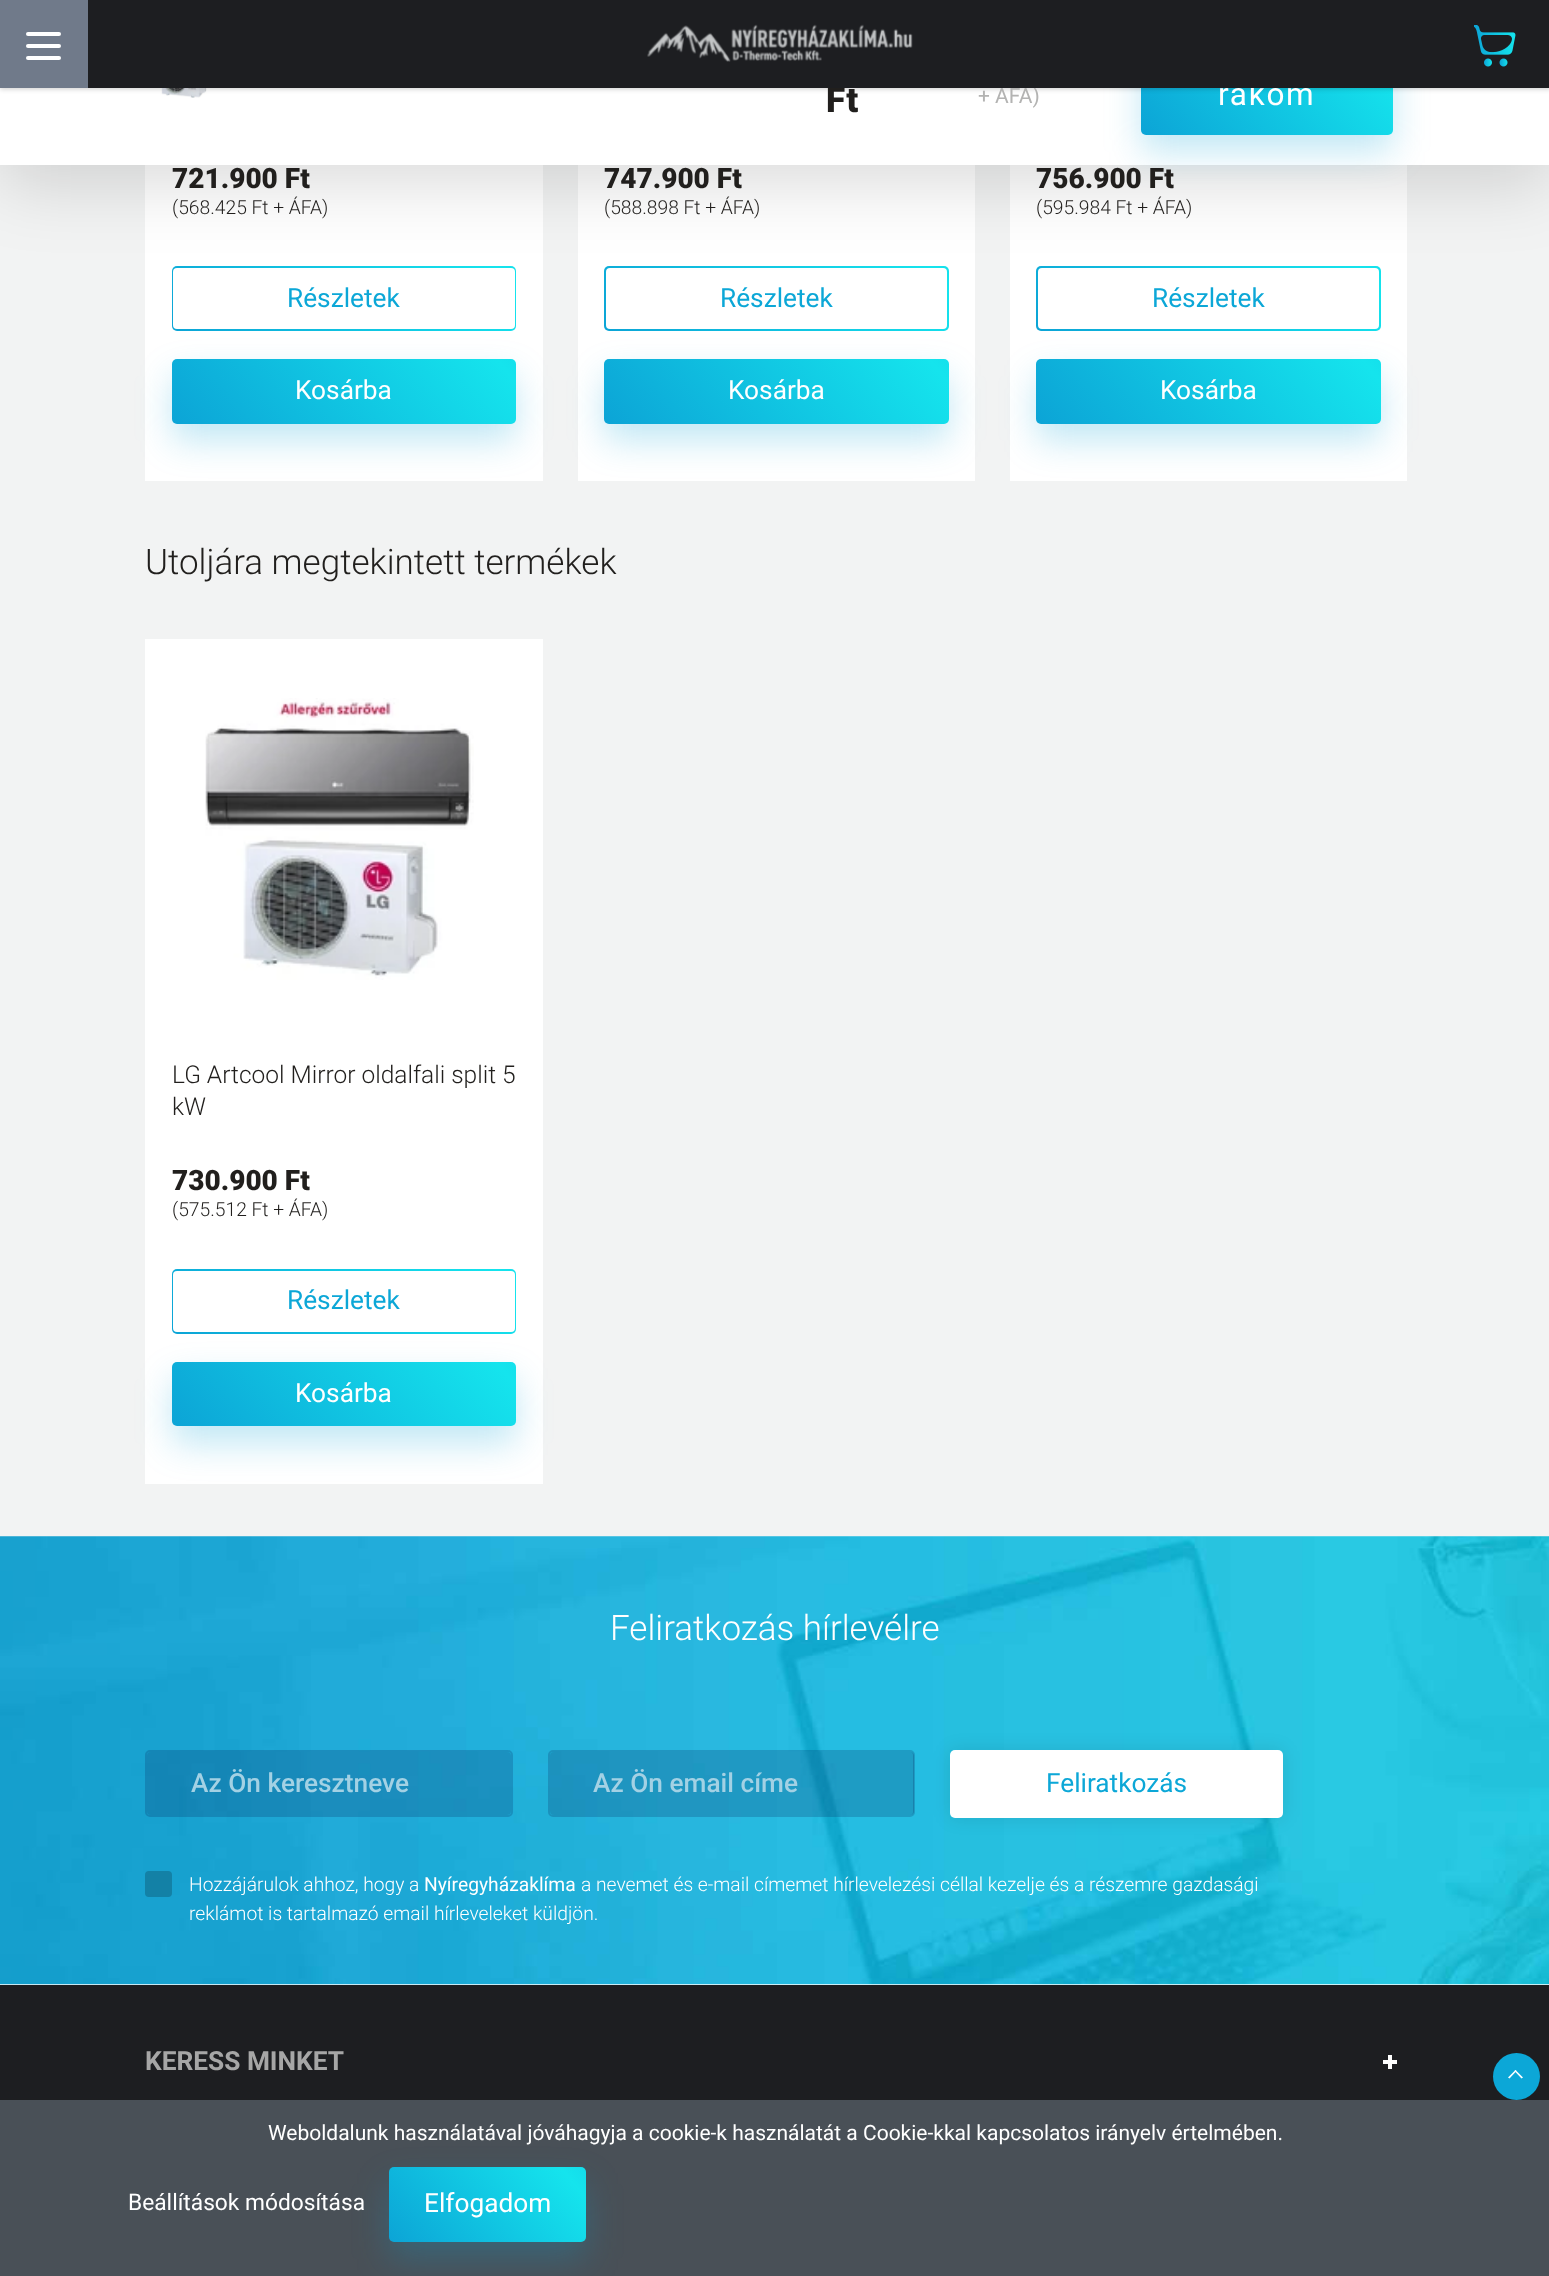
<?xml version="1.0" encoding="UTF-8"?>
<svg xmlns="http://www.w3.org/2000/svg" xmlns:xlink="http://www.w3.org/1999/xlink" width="1549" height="2276">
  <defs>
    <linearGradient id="g1" gradientUnits="userSpaceOnUse" x1="298" y1="482" x2="734" y2="115"><stop offset="0" stop-color="#0ca4d6" /><stop offset="0.51" stop-color="#15e4ed" /><stop offset="1" stop-color="#0ca4d6" /></linearGradient>
    <linearGradient id="g2" gradientUnits="userSpaceOnUse" x1="730" y1="482" x2="1167" y2="115"><stop offset="0" stop-color="#0ca4d6" /><stop offset="0.51" stop-color="#15e4ed" /><stop offset="1" stop-color="#0ca4d6" /></linearGradient>
    <linearGradient id="g3" gradientUnits="userSpaceOnUse" x1="1163" y1="482" x2="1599" y2="115"><stop offset="0" stop-color="#0ca4d6" /><stop offset="0.51" stop-color="#15e4ed" /><stop offset="1" stop-color="#0ca4d6" /></linearGradient>
    <linearGradient id="g4" gradientUnits="userSpaceOnUse" x1="1219" y1="228" x2="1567" y2="-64"><stop offset="0" stop-color="#0ca4d6" /><stop offset="0.51" stop-color="#15e4ed" /><stop offset="1" stop-color="#0ca4d6" /></linearGradient>
    <linearGradient id="g5" gradientUnits="userSpaceOnUse" x1="298" y1="574" x2="734" y2="208"><stop offset="0" stop-color="#0ca4d6" /><stop offset="0.51" stop-color="#15e4ed" /><stop offset="1" stop-color="#0ca4d6" /></linearGradient>
    <linearGradient id="g6" gradientUnits="userSpaceOnUse" x1="730" y1="574" x2="1167" y2="208"><stop offset="0" stop-color="#0ca4d6" /><stop offset="0.51" stop-color="#15e4ed" /><stop offset="1" stop-color="#0ca4d6" /></linearGradient>
    <linearGradient id="g7" gradientUnits="userSpaceOnUse" x1="1163" y1="574" x2="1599" y2="208"><stop offset="0" stop-color="#0ca4d6" /><stop offset="0.51" stop-color="#15e4ed" /><stop offset="1" stop-color="#0ca4d6" /></linearGradient>
    <linearGradient id="g8" gradientUnits="userSpaceOnUse" x1="298" y1="1484" x2="734" y2="1118"><stop offset="0" stop-color="#0ca4d6" /><stop offset="0.51" stop-color="#15e4ed" /><stop offset="1" stop-color="#0ca4d6" /></linearGradient>
    <linearGradient id="g9" gradientUnits="userSpaceOnUse" x1="298" y1="1577" x2="734" y2="1211"><stop offset="0" stop-color="#0ca4d6" /><stop offset="0.51" stop-color="#15e4ed" /><stop offset="1" stop-color="#0ca4d6" /></linearGradient>
    <linearGradient id="g10" gradientUnits="userSpaceOnUse" x1="452" y1="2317" x2="721" y2="2091"><stop offset="0" stop-color="#0ca4d6" /><stop offset="0.51" stop-color="#15e4ed" /><stop offset="1" stop-color="#0ca4d6" /></linearGradient>
  </defs>
  <rect width="100%" height="100%" fill="#f2f3f3" />
  <rect x="145" y="165" width="398" height="316" fill="#ffffff" />
  <rect x="172" y="376" width="344" height="65" rx="5" fill="#0ca4d6" fill-opacity="0.25" filter="blur(17.5px)" />
  <rect x="172" y="266" width="344" height="65" rx="5" fill="url(#g1)" />
  <rect x="173" y="268" width="342" height="61" rx="4" fill="#ffffff" />
  <rect x="578" y="165" width="397" height="316" fill="#ffffff" />
  <rect x="604" y="376" width="345" height="65" rx="5" fill="#0ca4d6" fill-opacity="0.25" filter="blur(17.5px)" />
  <rect x="604" y="266" width="345" height="65" rx="5" fill="url(#g2)" />
  <rect x="606" y="268" width="341" height="61" rx="4" fill="#ffffff" />
  <rect x="1010" y="165" width="397" height="316" fill="#ffffff" />
  <rect x="1036" y="376" width="345" height="65" rx="5" fill="#0ca4d6" fill-opacity="0.25" filter="blur(17.5px)" />
  <rect x="1036" y="266" width="345" height="65" rx="5" fill="url(#g3)" />
  <rect x="1038" y="268" width="341" height="61" rx="4" fill="#ffffff" />
  <rect y="18" width="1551" height="164" fill="#000000" fill-opacity="0.15" filter="blur(35px)" />
  <rect y="88" width="1549" height="77" fill="#ffffff" />
  <image x="153" y="88" width="61" height="10" xlink:href="image3.png" />
  <rect x="1141" y="47" width="252" height="105" rx="5" fill="#0ca4d6" fill-opacity="0.25" filter="blur(17.5px)" />
  <rect x="1141" y="30" width="252" height="105" rx="5" fill="url(#g4)" />
  <rect y="2" width="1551" height="87" fill="#000000" fill-opacity="0.2" filter="blur(2.5px)" />
  <rect width="88" height="88" fill="#707a8a" />
  <rect x="26" y="32" width="35" height="4" rx="2" fill="#ffffff" />
  <rect x="26" y="44" width="35" height="4" rx="2" fill="#ffffff" />
  <rect x="26" y="56" width="35" height="4" rx="2" fill="#ffffff" />
  <rect x="172" y="359" width="344" height="65" rx="5" fill="url(#g5)" />
  <rect x="604" y="359" width="345" height="65" rx="5" fill="url(#g6)" />
  <rect x="1036" y="359" width="345" height="65" rx="5" fill="url(#g7)" />
  <rect y="1984" width="1549" height="1" fill="#ffffff" />
  <rect x="145" y="639" width="398" height="845" fill="#ffffff" />
  <image x="205" y="698" width="269" height="282" xlink:href="image4.png" />
  <rect x="172" y="1379" width="344" height="65" rx="5" fill="#0ca4d6" fill-opacity="0.25" filter="blur(17.5px)" />
  <rect x="172" y="1269" width="344" height="65" rx="5" fill="url(#g8)" />
  <rect x="173" y="1271" width="342" height="61" rx="4" fill="#ffffff" />
  <rect x="172" y="1362" width="344" height="64" rx="5" fill="url(#g9)" />
  <image x="0" y="1536" width="1549" height="449" xlink:href="image5.png" />
  <rect x="147" y="1752" width="364" height="63" rx="4" fill="#061951" fill-opacity="0.2" />
  <rect x="146" y="1751" width="366" height="65" rx="4" fill="none" stroke="#061951" stroke-opacity="0.2" stroke-width="2" />
  <rect x="550" y="1752" width="364" height="63" rx="4" fill="#061951" fill-opacity="0.2" />
  <rect x="549" y="1751" width="365" height="65" rx="4" fill="none" stroke="#061951" stroke-opacity="0.2" stroke-width="2" />
  <rect x="950" y="1750" width="333" height="68" rx="5" fill="#000000" fill-opacity="0.1" filter="blur(9px)" />
  <rect x="950" y="1750" width="333" height="68" rx="5" fill="#ffffff" />
  <rect x="145" y="1871" width="27" height="26" rx="4" fill="#1381a6" />
  <rect y="1985" width="1549" height="115" fill="#1d1e21" />
  <rect x="1388" y="2055" width="4" height="14" fill="#ffffff" />
  <rect x="1383" y="2060" width="14" height="4" fill="#ffffff" />
  <circle cx="1516.5" cy="2076.5" r="23.5" fill="#0ca7d7" />
  <path d="M 1509.5 2078.5 l -1.5 -1 l 7.5 -7.5 l 1 1 z" fill="#ffffff" />
  <path d="M 1521.5 2078.5 l -7 -7.5 l 1 -1 l 7.5 7.5 z" fill="#ffffff" />
  <rect y="2100" width="1549" height="176" fill="#495057" />
  <rect x="389" y="2184" width="197" height="75" rx="5" fill="#0ca4d6" fill-opacity="0.25" filter="blur(17.5px)" />
  <rect x="389" y="2167" width="197" height="75" rx="5" fill="url(#g10)" />
  <text x="826" y="112" style="font-family: Roboto; font-size: 35px; font-weight: 900; letter-spacing: 1px; fill: #211f1d">Ft</text>
  <text x="978" y="103" style="font-family: Roboto; font-size: 21px; fill: #b3b3b2">+ ÁFA)</text>
  <text x="1218" y="105" style="font-family: Roboto; font-size: 31.5px; letter-spacing: 1.75px; fill: #ffffff">rakom</text>
  <rect x="88" width="1461" height="88" fill="#1d1e21" />
  <image x="1474" y="25" width="42" height="42" xlink:href="image2.png" />
  <image x="647" y="24" width="266" height="38" xlink:href="image1.png" />
  <text x="172" y="188" style="font-family: Roboto; font-size: 28px; font-weight: 900; fill: #211f1d">721.900 Ft</text>
  <text x="172" y="214" style="font-family: Roboto; font-size: 19.25px; font-weight: 300; fill: #211f1d">(568.425 Ft + ÁFA)</text>
  <text x="287" y="307" style="font-family: Roboto; font-size: 26.25px; fill: #0ca7d7">Részletek</text>
  <text x="295" y="399" style="font-family: Roboto; font-size: 26.25px; fill: #ffffff">Kosárba</text>
  <text x="604" y="188" style="font-family: Roboto; font-size: 28px; font-weight: 900; fill: #211f1d">747.900 Ft</text>
  <text x="604" y="214" style="font-family: Roboto; font-size: 19.25px; font-weight: 300; fill: #211f1d">(588.898 Ft + ÁFA)</text>
  <text x="720" y="307" style="font-family: Roboto; font-size: 26.25px; fill: #0ca7d7">Részletek</text>
  <text x="728" y="399" style="font-family: Roboto; font-size: 26.25px; fill: #ffffff">Kosárba</text>
  <text x="1036" y="188" style="font-family: Roboto; font-size: 28px; font-weight: 900; fill: #211f1d">756.900 Ft</text>
  <text x="1036" y="214" style="font-family: Roboto; font-size: 19.25px; font-weight: 300; fill: #211f1d">(595.984 Ft + ÁFA)</text>
  <text x="1152" y="307" style="font-family: Roboto; font-size: 26.25px; fill: #0ca7d7">Részletek</text>
  <text x="1160" y="399" style="font-family: Roboto; font-size: 26.25px; fill: #ffffff">Kosárba</text>
  <text x="145" y="574" style="font-family: Roboto; font-size: 35px; font-weight: 300; fill: #211f1d">Utoljára megtekintett termékek</text>
  <text x="172" y="1083" style="font-family: Roboto; font-size: 24.5px; font-weight: 300; fill: #211f1d">LG Artcool Mirror oldalfali split 5</text>
  <text x="172" y="1115" style="font-family: Roboto; font-size: 24.5px; font-weight: 300; fill: #211f1d">kW</text>
  <text x="172" y="1190" style="font-family: Roboto; font-size: 28px; font-weight: 900; fill: #211f1d">730.900 Ft</text>
  <text x="172" y="1216" style="font-family: Roboto; font-size: 19.25px; font-weight: 300; fill: #211f1d">(575.512 Ft + ÁFA)</text>
  <text x="287" y="1309" style="font-family: Roboto; font-size: 26.25px; fill: #0ca7d7">Részletek</text>
  <text x="295" y="1402" style="font-family: Roboto; font-size: 26.25px; fill: #ffffff">Kosárba</text>
  <text x="610" y="1640" style="font-family: Roboto; font-size: 35px; font-weight: 300; fill: #ffffff">Feliratkozás hírlevélre</text>
  <text x="191" y="1792" style="font-family: Roboto; font-size: 26.25px; font-weight: 500; fill: #a3d1e4">Az Ön keresztneve</text>
  <text x="593" y="1792" style="font-family: Roboto; font-size: 26.25px; font-weight: 500; fill: #a3d1e4">Az Ön email címe</text>
  <text x="1046" y="1792" style="font-family: Roboto; font-size: 26.25px; fill: #0ca7d7">Feliratkozás</text>
  <text x="189" y="1891" style="font-family: Roboto; font-size: 19.25px; font-weight: 300; fill: #ffffff">Hozzájárulok ahhoz, hogy a</text>
  <text x="424" y="1891" style="font-family: Roboto; font-size: 19.25px; fill: #ffffff">Nyíregyházaklíma</text>
  <text x="581" y="1891" style="font-family: Roboto; font-size: 19.25px; font-weight: 300; fill: #ffffff">a nevemet és e-mail címemet hírlevelezési céllal kezelje és a részemre gazdasági</text>
  <text x="189" y="1920" style="font-family: Roboto; font-size: 19.25px; font-weight: 300; fill: #ffffff">reklámot is tartalmazó email hírleveleket küldjön.</text>
  <text x="145" y="2070" style="font-family: Roboto; font-size: 26.25px; font-weight: bold; fill: #a6a6a6">KERESS MINKET</text>
  <text x="268" y="2140" style="font-family: Roboto; font-size: 21px; fill: #ffffff">Weboldalunk használatával jóváhagyja a cookie-k használatát a Cookie-kkal kapcsolatos irányelv értelmében.</text>
  <text x="128" y="2210" style="font-family: Roboto; font-size: 22.75px; fill: #ffffff">Beállítások módosítása</text>
  <text x="424" y="2212" style="font-family: Roboto; font-size: 26.25px; fill: #ffffff">Elfogadom</text>
</svg>
